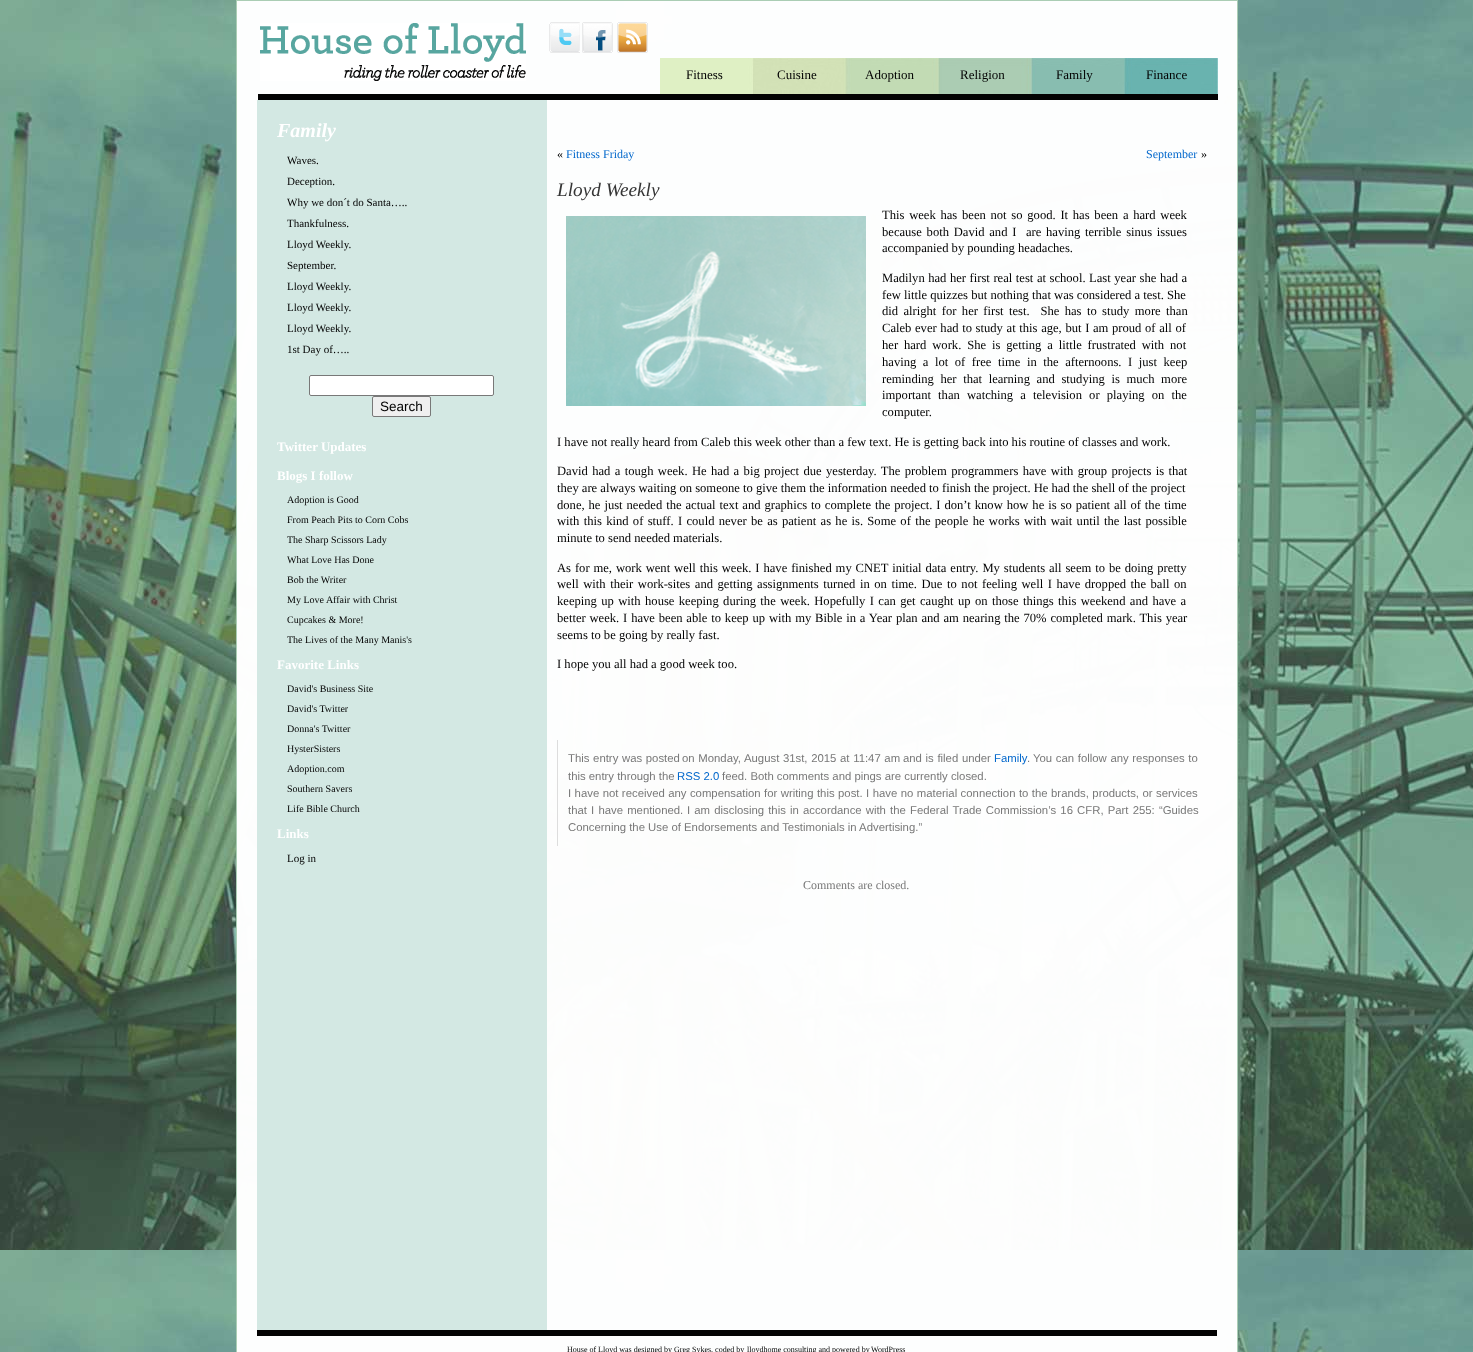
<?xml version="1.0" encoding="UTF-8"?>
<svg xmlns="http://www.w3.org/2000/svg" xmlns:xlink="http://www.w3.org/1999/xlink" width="1473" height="1352">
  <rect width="100%" height="100%" fill="#ffffff" />
  <image x="0" y="0" width="1473" height="1352" xlink:href="image1.png" />
  <rect x="236.5" y="0.5" width="1001" height="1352" fill="#ffffff" fill-opacity="0.99" stroke="#aacdb4" />
  <rect x="258" y="94" width="960" height="6" fill="#030303" />
  <image x="260" y="23" width="266" height="58" xlink:href="image2.png" />
  <image x="549" y="22" width="31" height="31" xlink:href="image3.png" />
  <image x="582" y="22" width="31" height="31" xlink:href="image4.png" />
  <image x="617" y="22" width="31" height="31" xlink:href="image5.png" />
  <image x="660" y="58" width="558" height="36" xlink:href="image6.png" />
  <rect x="257" y="100" width="290" height="1230" fill="#d3e8e3" />
  <rect x="309" y="375" width="185" height="21" rx="2" fill="#ffffff" />
  <rect x="309.5" y="375.5" width="184" height="20" rx="1.5" fill="none" stroke="#767676" stroke-opacity="0.99" />
  <rect x="372" y="396" width="59" height="21" rx="2" fill="#efefef" />
  <rect x="372.5" y="396.5" width="58" height="20" rx="1.5" fill="none" stroke="#767676" stroke-opacity="0.99" />
  <image x="566" y="216" width="300" height="190" xlink:href="image7.png" />
  <rect x="557" y="740" width="1" height="106" fill="#dddddd" />
  <rect x="257" y="1330" width="960" height="6" fill="#030303" />
  <text x="686" y="79" style="font-family: Liberation Serif; font-size: 13px; fill: #020202">Fitness</text>
  <text x="777" y="79" style="font-family: Liberation Serif; font-size: 13px; fill: #020202">Cuisine</text>
  <text x="865" y="79" style="font-family: Liberation Serif; font-size: 13px; fill: #020202">Adoption</text>
  <text x="960" y="79" style="font-family: Liberation Serif; font-size: 13px; fill: #020202">Religion</text>
  <text x="1056" y="79" style="font-family: Liberation Serif; font-size: 13px; fill: #020202">Family</text>
  <text x="1146" y="79" style="font-family: Liberation Serif; font-size: 13px; fill: #020202">Finance</text>
  <text x="277" y="137" style="font-family: Liberation Serif; font-size: 20px; font-weight: bold; font-style: italic; fill: #ffffff">Family</text>
  <text x="287" y="164" style="font-family: Liberation Serif; font-size: 11px; fill: #020202">Waves.</text>
  <text x="287" y="185" style="font-family: Liberation Serif; font-size: 11px; fill: #020202">Deception.</text>
  <text x="287" y="206" style="font-family: Liberation Serif; font-size: 11px; fill: #020202">Why we don´t do Santa…..</text>
  <text x="287" y="227" style="font-family: Liberation Serif; font-size: 11px; fill: #020202">Thankfulness.</text>
  <text x="287" y="248" style="font-family: Liberation Serif; font-size: 11px; fill: #020202">Lloyd Weekly.</text>
  <text x="287" y="269" style="font-family: Liberation Serif; font-size: 11px; fill: #020202">September.</text>
  <text x="287" y="290" style="font-family: Liberation Serif; font-size: 11px; fill: #020202">Lloyd Weekly.</text>
  <text x="287" y="311" style="font-family: Liberation Serif; font-size: 11px; fill: #020202">Lloyd Weekly.</text>
  <text x="287" y="332" style="font-family: Liberation Serif; font-size: 11px; fill: #020202">Lloyd Weekly.</text>
  <text x="287" y="353" style="font-family: Liberation Serif; font-size: 11px; fill: #020202">1st Day of…..</text>
  <text x="380" y="411" style="font-family: Liberation Sans; font-size: 13.5px; fill: #020202">Search</text>
  <text x="277" y="451" style="font-family: Liberation Serif; font-size: 13px; font-weight: bold; fill: #ffffff">Twitter Updates</text>
  <text x="277" y="480" style="font-family: Liberation Serif; font-size: 13px; font-weight: bold; fill: #ffffff">Blogs I follow</text>
  <text x="287" y="503" style="font-family: Liberation Serif; font-size: 10px; fill: #020202">Adoption is Good</text>
  <text x="287" y="523" style="font-family: Liberation Serif; font-size: 10px; fill: #020202">From Peach Pits to Corn Cobs</text>
  <text x="287" y="543" style="font-family: Liberation Serif; font-size: 10px; fill: #020202">The Sharp Scissors Lady</text>
  <text x="287" y="563" style="font-family: Liberation Serif; font-size: 10px; fill: #020202">What Love Has Done</text>
  <text x="287" y="583" style="font-family: Liberation Serif; font-size: 10px; fill: #020202">Bob the Writer</text>
  <text x="287" y="603" style="font-family: Liberation Serif; font-size: 10px; fill: #020202">My Love Affair with Christ</text>
  <text x="287" y="623" style="font-family: Liberation Serif; font-size: 10px; fill: #020202">Cupcakes &amp; More!</text>
  <text x="287" y="643" style="font-family: Liberation Serif; font-size: 10px; fill: #020202">The Lives of the Many Manis's</text>
  <text x="277" y="669" style="font-family: Liberation Serif; font-size: 13px; font-weight: bold; fill: #ffffff">Favorite Links</text>
  <text x="287" y="692" style="font-family: Liberation Serif; font-size: 10px; fill: #020202">David's Business Site</text>
  <text x="287" y="712" style="font-family: Liberation Serif; font-size: 10px; fill: #020202">David's Twitter</text>
  <text x="287" y="732" style="font-family: Liberation Serif; font-size: 10px; fill: #020202">Donna's Twitter</text>
  <text x="287" y="752" style="font-family: Liberation Serif; font-size: 10px; fill: #020202">HysterSisters</text>
  <text x="287" y="772" style="font-family: Liberation Serif; font-size: 10px; fill: #020202">Adoption.com</text>
  <text x="287" y="792" style="font-family: Liberation Serif; font-size: 10px; fill: #020202">Southern Savers</text>
  <text x="287" y="812" style="font-family: Liberation Serif; font-size: 10px; fill: #020202">Life Bible Church</text>
  <text x="277" y="838" style="font-family: Liberation Serif; font-size: 13px; font-weight: bold; fill: #ffffff">Links</text>
  <text x="287" y="862" style="font-family: Liberation Serif; font-size: 11px; fill: #020202">Log in</text>
  <text x="557" y="158" style="font-family: Liberation Serif; font-size: 12px; fill: #020202">«</text>
  <text x="566" y="158" style="font-family: Liberation Serif; font-size: 12px; fill: #0368cc">Fitness Friday</text>
  <text x="1146" y="158" style="font-family: Liberation Serif; font-size: 12px; fill: #0368cc">September</text>
  <text x="1201" y="158" style="font-family: Liberation Serif; font-size: 12px; fill: #020202">»</text>
  <text x="557" y="196" style="font-family: Liberation Serif; font-size: 19.25px; font-style: italic; fill: #353535">Lloyd Weekly</text>
  <text x="882" y="219" word-spacing="1.6" style="font-family: Liberation Serif; font-size: 12.6px; fill: #020202">This week has been not so good. It has been a hard week</text>
  <text x="882" y="236" word-spacing="1.6" style="font-family: Liberation Serif; font-size: 12.6px; fill: #020202" xml:space="preserve">because both David and I  are having terrible sinus issues</text>
  <text x="882" y="252" style="font-family: Liberation Serif; font-size: 12.6px; fill: #020202">accompanied by pounding headaches.</text>
  <text x="882" y="282" word-spacing="0.4" style="font-family: Liberation Serif; font-size: 12.6px; fill: #020202">Madilyn had her first real test at school. Last year she had a</text>
  <text x="882" y="299" style="font-family: Liberation Serif; font-size: 12.6px; fill: #020202">few little quizzes but nothing that was considered a test. She</text>
  <text x="882" y="315" word-spacing="2.25" style="font-family: Liberation Serif; font-size: 12.6px; fill: #020202" xml:space="preserve">did alright for her first test.  She has to study more than</text>
  <text x="882" y="332" word-spacing="0.5" style="font-family: Liberation Serif; font-size: 12.6px; fill: #020202">Caleb ever had to study at this age, but I am proud of all of</text>
  <text x="882" y="349" word-spacing="2.75" style="font-family: Liberation Serif; font-size: 12.6px; fill: #020202">her hard work. She is getting a little frustrated with not</text>
  <text x="882" y="366" word-spacing="3.4" style="font-family: Liberation Serif; font-size: 12.6px; fill: #020202">having a lot of free time in the afternoons. I just keep</text>
  <text x="882" y="383" word-spacing="3.5" style="font-family: Liberation Serif; font-size: 12.6px; fill: #020202">reminding her that learning and studying is much more</text>
  <text x="882" y="399" word-spacing="4" style="font-family: Liberation Serif; font-size: 12.6px; fill: #020202">important than watching a television or playing on the</text>
  <text x="882" y="416" style="font-family: Liberation Serif; font-size: 12.6px; fill: #020202">computer.</text>
  <text x="557" y="446" style="font-family: Liberation Serif; font-size: 12.6px; fill: #020202">I have not really heard from Caleb this week other than a few text. He is getting back into his routine of classes and work.</text>
  <text x="557" y="475" word-spacing="1.25" style="font-family: Liberation Serif; font-size: 12.6px; fill: #020202">David had a tough week. He had a big project due yesterday. The problem programmers have with group projects is that</text>
  <text x="557" y="492" style="font-family: Liberation Serif; font-size: 12.6px; fill: #020202">they are always waiting on someone to give them the information needed to finish the project. He had the shell of the project</text>
  <text x="557" y="509" word-spacing="0.8" style="font-family: Liberation Serif; font-size: 12.6px; fill: #020202">done, he just needed the actual text and graphics to complete the project. I don’t know how he is so patient all of the time</text>
  <text x="557" y="525" word-spacing="1.15" style="font-family: Liberation Serif; font-size: 12.6px; fill: #020202">with this kind of stuff. I could never be as patient as he is. Some of the people he works with wait until the last possible</text>
  <text x="557" y="542" style="font-family: Liberation Serif; font-size: 12.6px; fill: #020202">minute to send needed materials.</text>
  <text x="557" y="572" word-spacing="0.75" style="font-family: Liberation Serif; font-size: 12.6px; fill: #020202">As for me, work went well this week. I have finished my CNET initial data entry. My students all seem to be doing pretty</text>
  <text x="557" y="588" word-spacing="1.4" style="font-family: Liberation Serif; font-size: 12.6px; fill: #020202">well with their work-sites and getting assignments turned in on time. Due to not feeling well I have dropped the ball on</text>
  <text x="557" y="605" word-spacing="1.25" style="font-family: Liberation Serif; font-size: 12.6px; fill: #020202">keeping up with house keeping during the week. Hopefully I can get caught up on those things this weekend and have a</text>
  <text x="557" y="622" word-spacing="0.7" style="font-family: Liberation Serif; font-size: 12.6px; fill: #020202">better week. I have been able to keep up with my Bible in a Year plan and am nearing the 70% completed mark. This year</text>
  <text x="557" y="639" style="font-family: Liberation Serif; font-size: 12.6px; fill: #020202">seems to be going by really fast.</text>
  <text x="557" y="668" style="font-family: Liberation Serif; font-size: 12.6px; fill: #020202">I hope you all had a good week too.</text>
  <text x="568" y="762" word-spacing="0.5" style="font-family: Liberation Sans; font-size: 11.35px; fill: #787878">This entry was posted</text>
  <text x="682" y="762" word-spacing="0.5" style="font-family: Liberation Sans; font-size: 11.35px; fill: #787878">on Monday, August 31st, 2015 at 11:47 am</text>
  <text x="903" y="762" word-spacing="0.5" style="font-family: Liberation Sans; font-size: 11.35px; fill: #787878">and is filed under</text>
  <text x="994" y="762" style="font-family: Liberation Sans; font-size: 11.35px; fill: #0368cc">Family</text>
  <text x="1033" y="762" word-spacing="0.5" style="font-family: Liberation Sans; font-size: 11.35px; fill: #787878">You can follow any responses to</text>
  <text x="1027" y="762" style="font-family: Liberation Sans; font-size: 11.35px; fill: #787878">.</text>
  <text x="568" y="780" style="font-family: Liberation Sans; font-size: 11.35px; fill: #787878">this entry through the</text>
  <text x="677" y="780" style="font-family: Liberation Sans; font-size: 11.35px; fill: #0368cc">RSS 2.0</text>
  <text x="722" y="780" style="font-family: Liberation Sans; font-size: 11.35px; fill: #787878">feed. Both comments and pings are currently closed.</text>
  <text x="568" y="797" word-spacing="0.3" style="font-family: Liberation Sans; font-size: 11.35px; fill: #787878">I have not received any compensation for writing this post. I have no material connection to the brands, products, or services</text>
  <text x="568" y="814" word-spacing="1" style="font-family: Liberation Sans; font-size: 11.35px; fill: #787878">that I have mentioned.</text>
  <text x="687" y="814" word-spacing="1" style="font-family: Liberation Sans; font-size: 11.35px; fill: #787878">I am disclosing this in accordance with the Federal Trade Commission’s 16 CFR, Part 255: “Guides</text>
  <text x="568" y="831" style="font-family: Liberation Sans; font-size: 11.35px; fill: #787878">Concerning the Use of Endorsements and Testimonials in Advertising.”</text>
  <text x="803" y="889" style="font-family: Liberation Serif; font-size: 12px; fill: #787878">Comments are closed.</text>
  <text x="567" y="1352" style="font-family: Liberation Serif; font-size: 8px; fill: #020202">House of Lloyd was designed by</text>
  <text x="674" y="1352" style="font-family: Liberation Serif; font-size: 8px; fill: #020202">Greg Sykes, coded by</text>
  <text x="747" y="1352" style="font-family: Liberation Serif; font-size: 8px; fill: #020202">lloydhome consulting and powered by</text>
  <text x="871" y="1352" style="font-family: Liberation Serif; font-size: 8px; fill: #020202">WordPress</text>
</svg>
